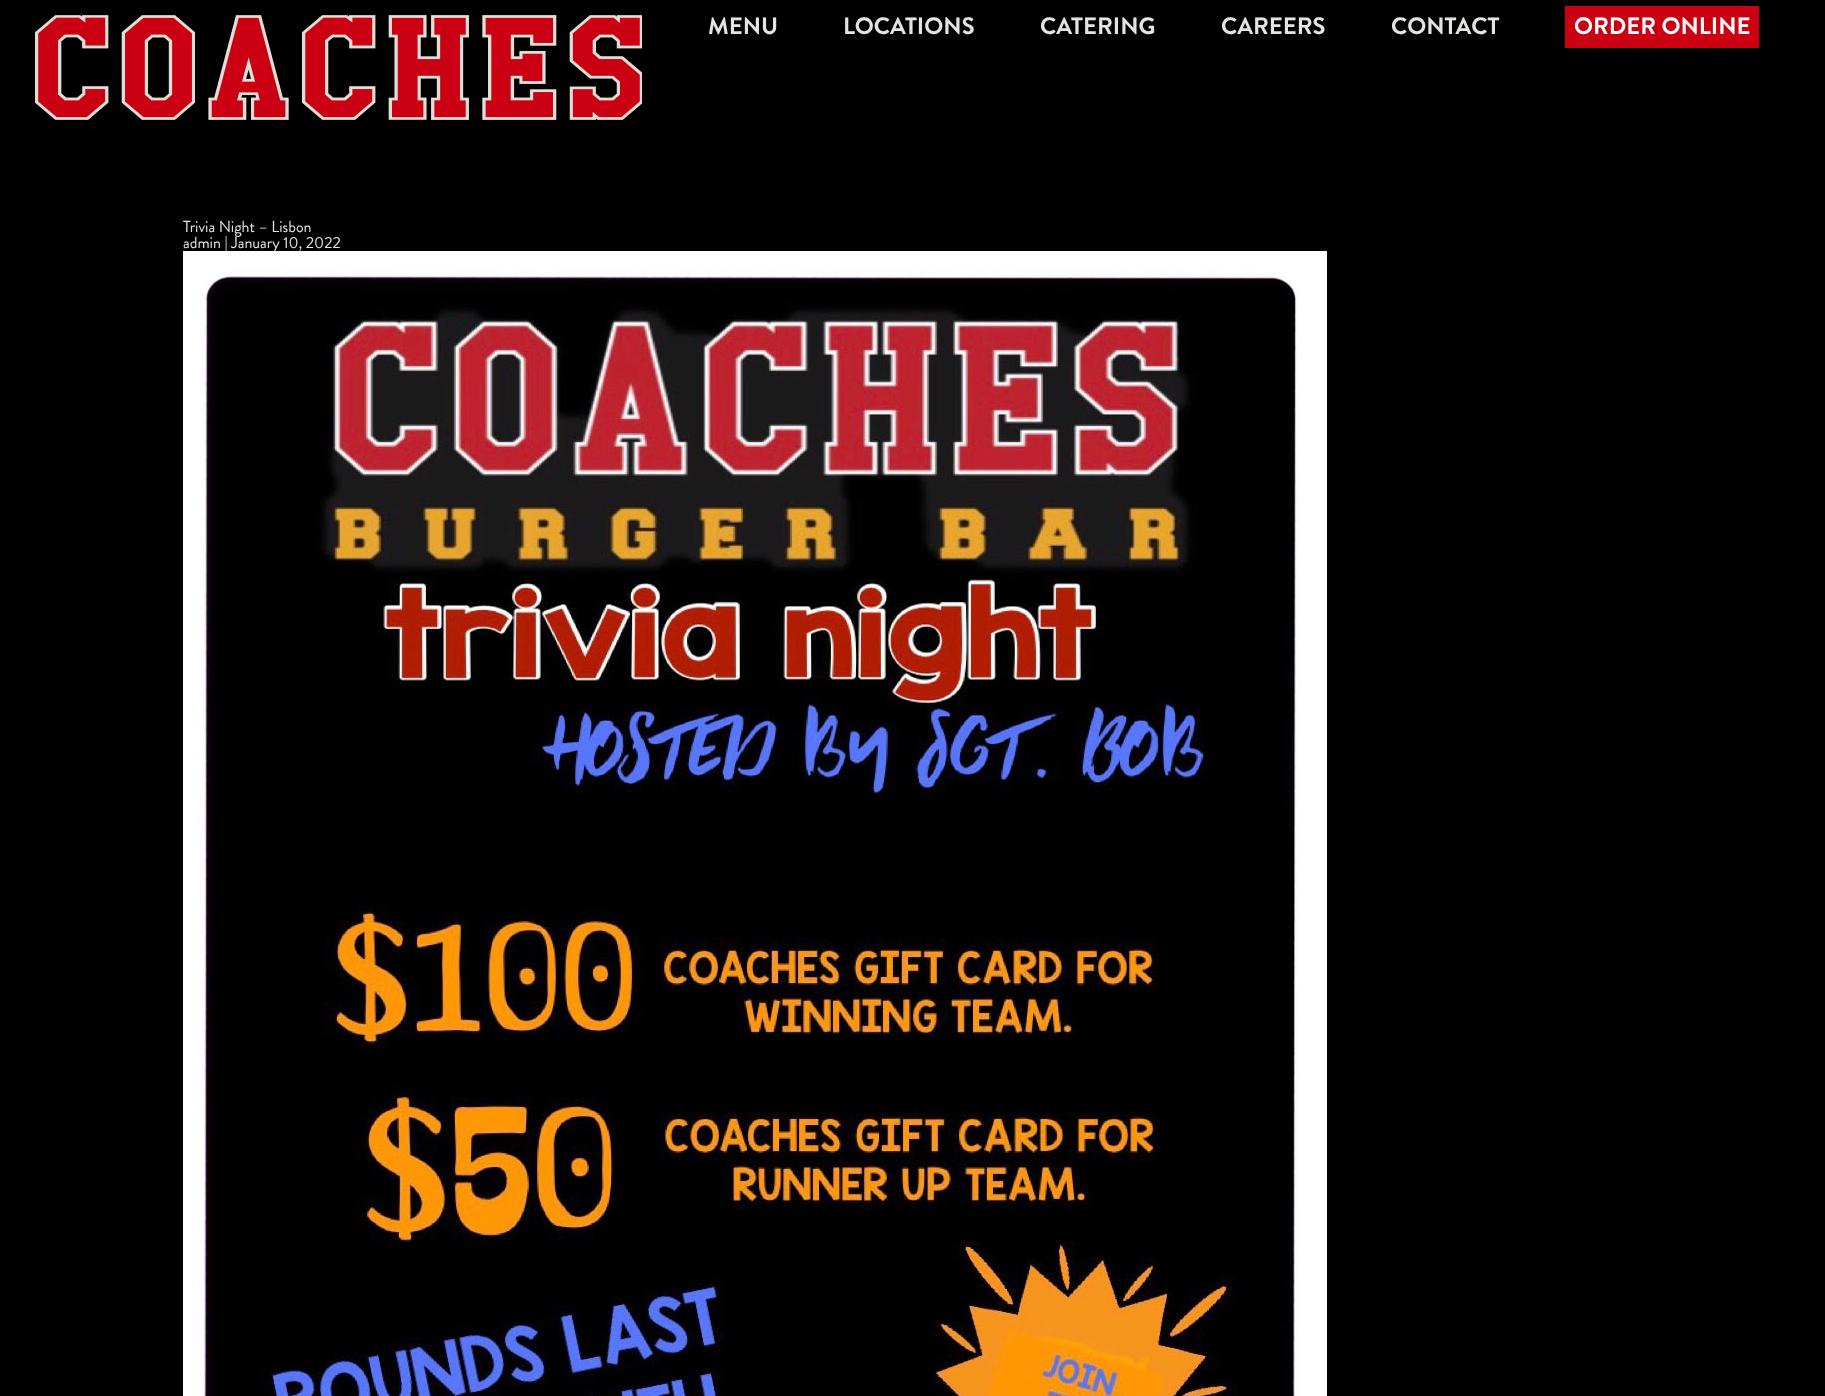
<?xml version="1.0" encoding="UTF-8"?>
<svg xmlns="http://www.w3.org/2000/svg" xmlns:xlink="http://www.w3.org/1999/xlink" width="1825" height="1396">
  <rect width="100%" height="100%" fill="#000000" />
  <image x="35" y="15" width="607" height="105" xlink:href="image1.png" />
  <rect x="1565" y="6" width="194" height="42" fill="#cb0013" />
  <text x="708" y="34" style="font-family: Brandon Grotesque; font-size: 23.75px; font-weight: bold; fill: #e7e4df">MENU</text>
  <text x="843" y="34" style="font-family: Brandon Grotesque; font-size: 23.75px; font-weight: bold; fill: #e7e4df">LOCATIONS</text>
  <text x="1040" y="34" style="font-family: Brandon Grotesque; font-size: 23.75px; font-weight: bold; fill: #e7e4df">CATERING</text>
  <text x="1221" y="34" style="font-family: Brandon Grotesque; font-size: 23.75px; font-weight: bold; fill: #e7e4df">CAREERS</text>
  <text x="1391" y="34" style="font-family: Brandon Grotesque; font-size: 23.75px; font-weight: bold; fill: #e7e4df">CONTACT</text>
  <text x="1574" y="34" style="font-family: Brandon Grotesque; font-size: 23.75px; font-weight: bold; fill: #ffffff">ORDER ONLINE</text>
  <text x="183" y="232" style="font-family: Brandon Grotesque; font-size: 16px; fill: #e7e4df">Trivia Night – Lisbon</text>
  <text x="183" y="248" style="font-family: Brandon Grotesque; font-size: 16px; fill: #e7e4df">admin | January 10, 2022</text>
  <image x="183" y="251" width="1144" height="1145" xlink:href="image2.png" />
</svg>
